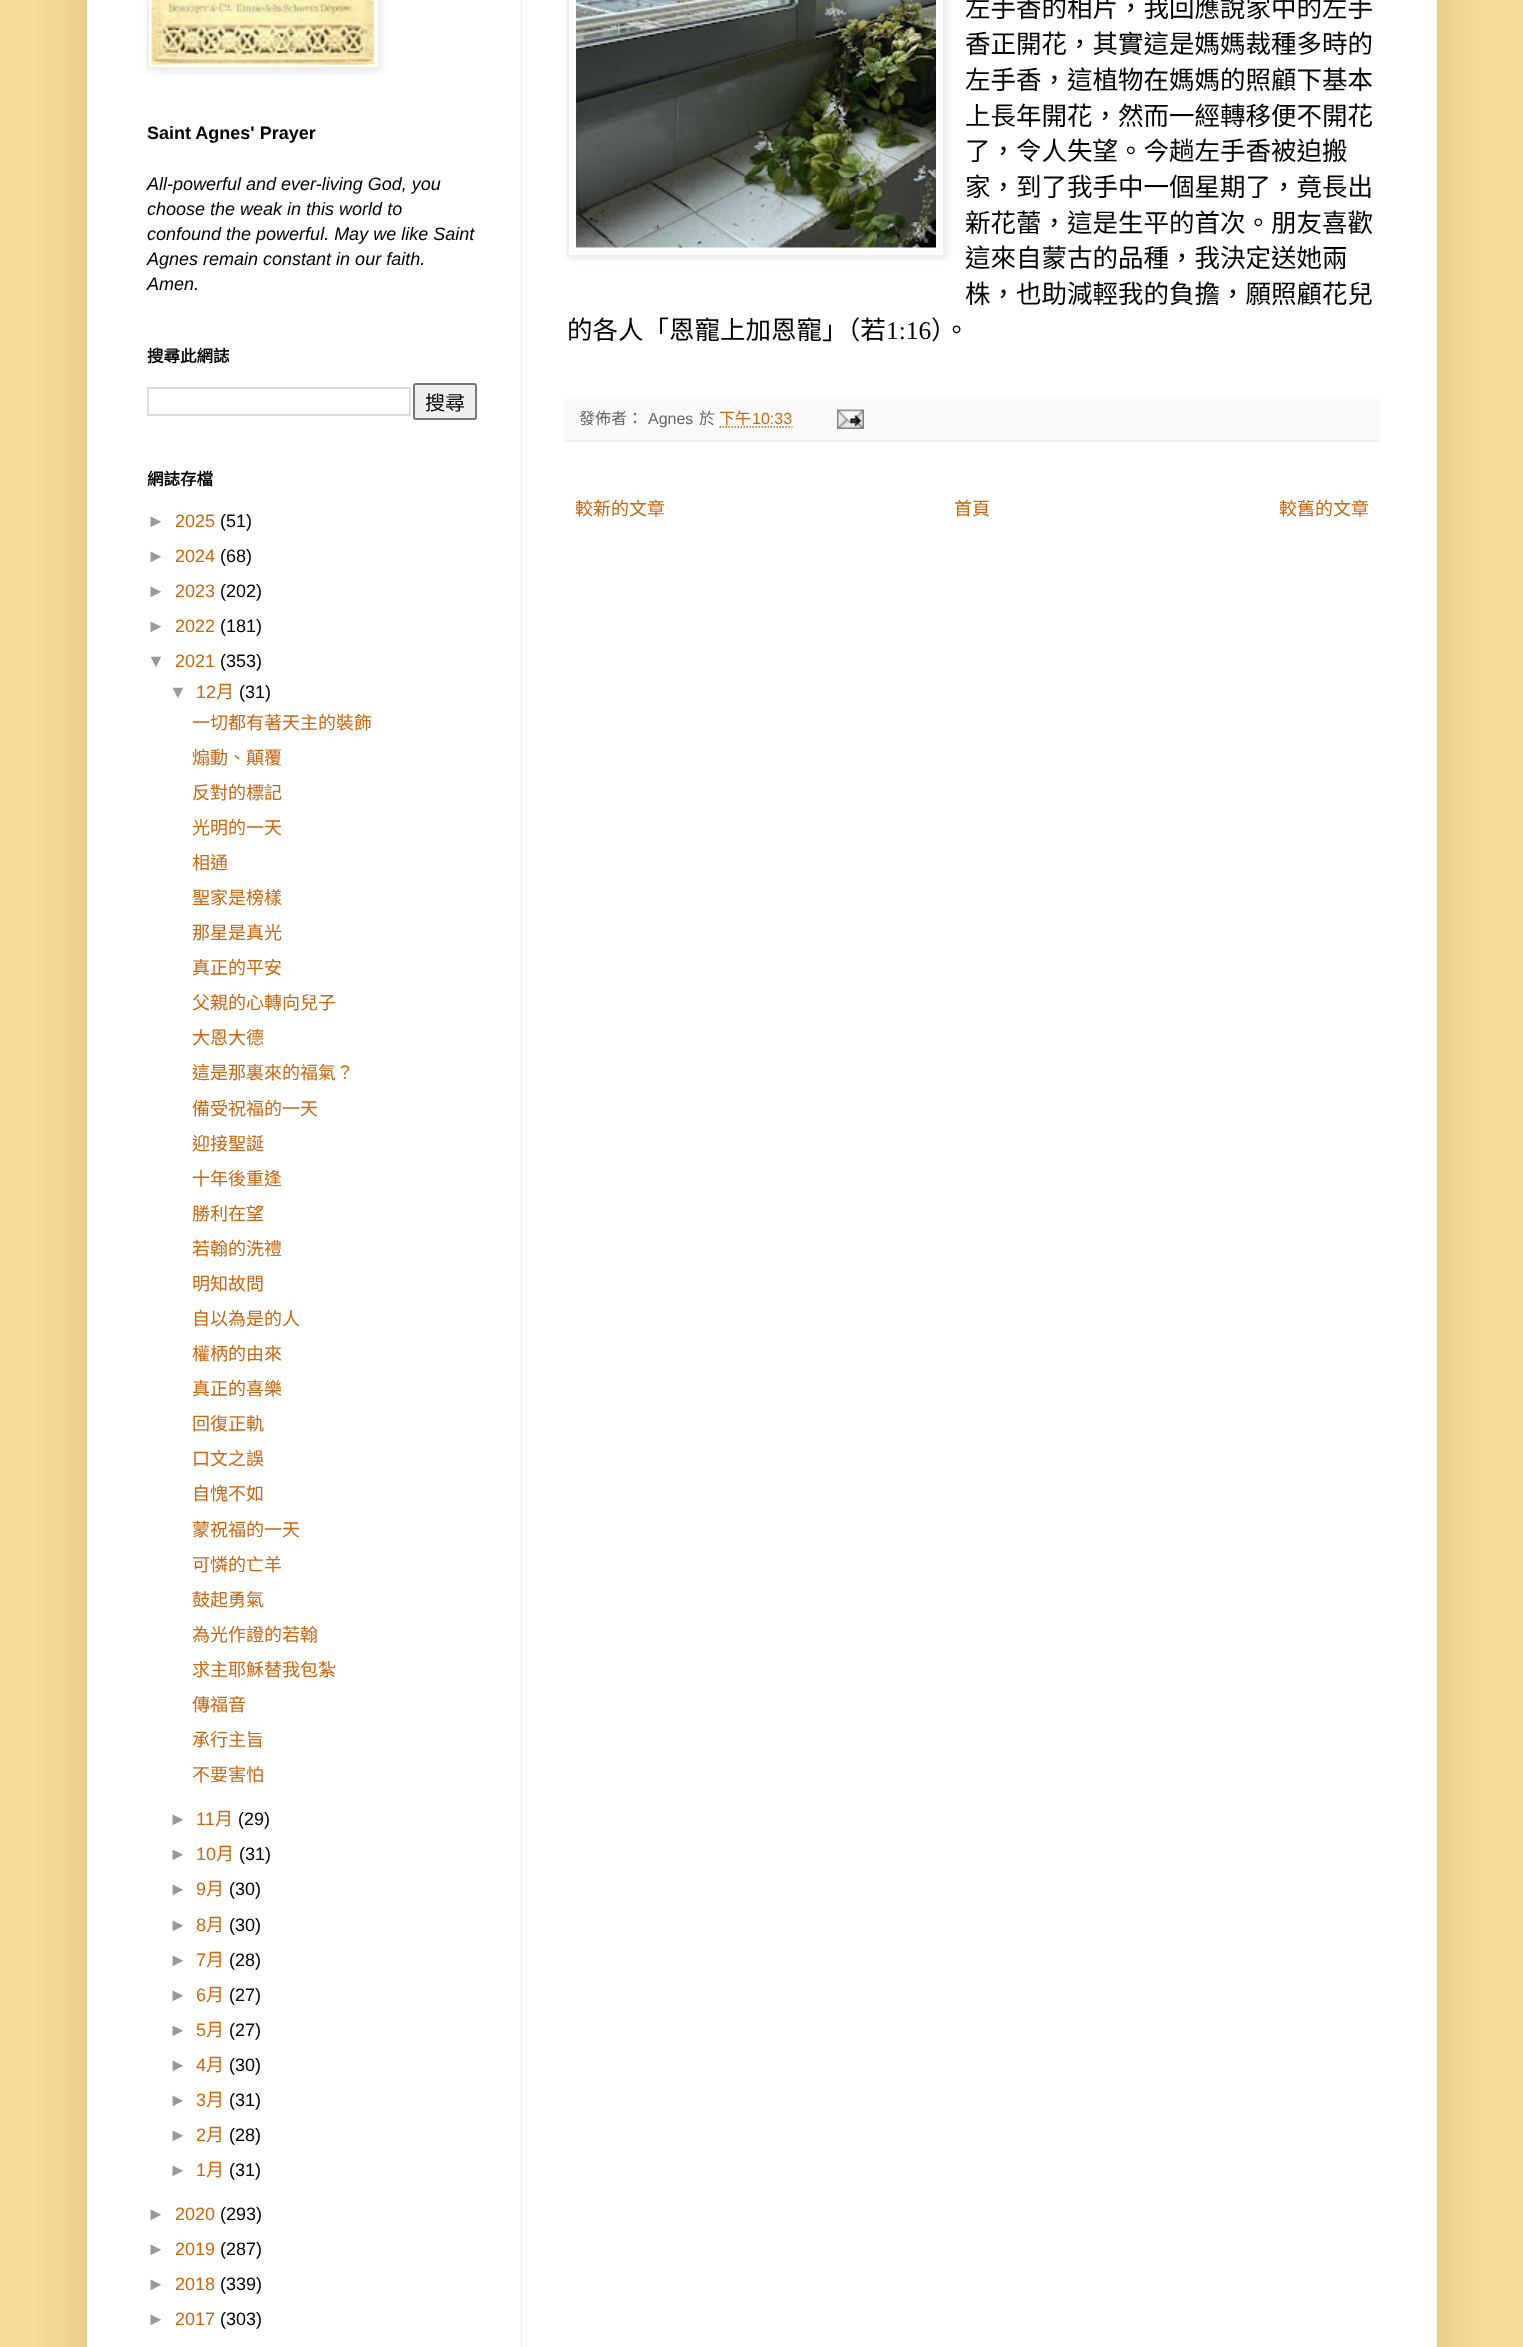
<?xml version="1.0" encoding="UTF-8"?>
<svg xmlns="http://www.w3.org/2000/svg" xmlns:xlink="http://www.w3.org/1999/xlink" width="1523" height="2347">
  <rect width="100%" height="100%" fill="#f9dc99" />
  <rect x="87" y="-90" width="1350" height="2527" fill="#000000" fill-opacity="0.15" filter="blur(30px)" />
  <rect x="87" width="1350" height="2347" fill="#ffffff" />
  <rect x="149" y="-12" width="232" height="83" fill="#000000" fill-opacity="0.1" filter="blur(4px)" />
  <rect x="148" y="-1" width="231" height="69" fill="#ffffff" stroke="#eeeeee" stroke-width="2" />
  <image x="151" y="0" width="224" height="65" xlink:href="image1.png" />
  <rect x="148" y="388" width="262" height="27" fill="none" stroke="#dddddd" stroke-width="2" />
  <rect x="414" y="384" width="62" height="35" rx="2" fill="#efefef" stroke="#767676" stroke-width="2" />
  <rect x="569" y="-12" width="378" height="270" fill="#000000" fill-opacity="0.1" filter="blur(4px)" />
  <rect x="568" y="-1" width="376" height="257" fill="#ffffff" stroke="#eeeeee" stroke-width="2" />
  <image x="576" y="0" width="360" height="248" xlink:href="image2.png" />
  <rect x="564" y="399" width="816" height="41" fill="#f9f9f9" />
  <rect x="564" y="440" width="816" height="2" fill="#eeeeee" />
  <path d="M 719.5 427 h 73" fill="none" stroke="#cc6611" stroke-width="1.5" stroke-dasharray="1.5 1.5" />
  <image x="837" y="409" width="27" height="20" xlink:href="image3.png" />
  <rect x="521" width="1" height="2347" fill="#eeeeee" />
  <text x="147" y="139" style="font-family: Liberation Sans; font-size: 18px; font-weight: bold; fill: #000000">Saint Agnes' Prayer</text>
  <text x="147" y="190" style="font-family: Liberation Sans; font-size: 18px; font-style: italic; fill: #000000">All-powerful and ever-living God, you</text>
  <text x="147" y="215" style="font-family: Liberation Sans; font-size: 18px; font-style: italic; fill: #000000">choose the weak in this world to</text>
  <text x="147" y="240" style="font-family: Liberation Sans; font-size: 18px; font-style: italic; fill: #000000">confound the powerful. May we like Saint</text>
  <text x="147" y="265" style="font-family: Liberation Sans; font-size: 18px; font-style: italic; fill: #000000">Agnes remain constant in our faith.</text>
  <text x="147" y="290" style="font-family: Liberation Sans; font-size: 18px; font-style: italic; fill: #000000">Amen.</text>
  <text x="147" y="362" style="font-family: Noto Sans CJK HK; font-size: 16.5px; font-weight: bold; fill: #000000">搜尋此網誌</text>
  <text x="425" y="410" style="font-family: Noto Sans CJK HK; font-size: 20px; fill: #000000">搜尋</text>
  <text x="147" y="485" style="font-family: Noto Sans CJK HK; font-size: 16.5px; font-weight: bold; fill: #000000">網誌存檔</text>
  <text x="147" y="527" style="font-family: Liberation Sans; font-size: 18px; fill: #999999">►</text>
  <text x="175" y="527" style="font-family: Liberation Sans; font-size: 18px; fill: #cc6611">2025</text>
  <text x="220" y="527" style="font-family: Liberation Sans; font-size: 18px; fill: #000000">(51)</text>
  <text x="147" y="562" style="font-family: Liberation Sans; font-size: 18px; fill: #999999">►</text>
  <text x="175" y="562" style="font-family: Liberation Sans; font-size: 18px; fill: #cc6611">2024</text>
  <text x="220" y="562" style="font-family: Liberation Sans; font-size: 18px; fill: #000000">(68)</text>
  <text x="147" y="597" style="font-family: Liberation Sans; font-size: 18px; fill: #999999">►</text>
  <text x="175" y="597" style="font-family: Liberation Sans; font-size: 18px; fill: #cc6611">2023</text>
  <text x="220" y="597" style="font-family: Liberation Sans; font-size: 18px; fill: #000000">(202)</text>
  <text x="147" y="632" style="font-family: Liberation Sans; font-size: 18px; fill: #999999">►</text>
  <text x="175" y="632" style="font-family: Liberation Sans; font-size: 18px; fill: #cc6611">2022</text>
  <text x="220" y="632" style="font-family: Liberation Sans; font-size: 18px; fill: #000000">(181)</text>
  <text x="147" y="667" style="font-family: Liberation Sans; font-size: 18px; fill: #999999">▼</text>
  <text x="175" y="667" style="font-family: Liberation Sans; font-size: 18px; fill: #cc6611">2021</text>
  <text x="220" y="667" style="font-family: Liberation Sans; font-size: 18px; fill: #000000">(353)</text>
  <text x="169" y="698" style="font-family: Liberation Sans; font-size: 18px; fill: #999999">▼</text>
  <text x="196" y="698" style="font-family: Liberation Sans; font-size: 18px; fill: #cc6611">12</text>
  <text x="216" y="698" style="font-family: Noto Sans CJK HK; font-size: 18px; fill: #cc6611">月</text>
  <text x="239" y="698" style="font-family: Liberation Sans; font-size: 18px; fill: #000000">(31)</text>
  <text x="192" y="729" style="font-family: Noto Sans CJK HK; font-size: 18px; fill: #cc6611">一切都有著天主的裝飾</text>
  <text x="192" y="764" style="font-family: Noto Sans CJK HK; font-size: 18px; fill: #cc6611">煽動、顛覆</text>
  <text x="192" y="799" style="font-family: Noto Sans CJK HK; font-size: 18px; fill: #cc6611">反對的標記</text>
  <text x="192" y="834" style="font-family: Noto Sans CJK HK; font-size: 18px; fill: #cc6611">光明的一天</text>
  <text x="192" y="869" style="font-family: Noto Sans CJK HK; font-size: 18px; fill: #cc6611">相通</text>
  <text x="192" y="904" style="font-family: Noto Sans CJK HK; font-size: 18px; fill: #cc6611">聖家是榜樣</text>
  <text x="192" y="939" style="font-family: Noto Sans CJK HK; font-size: 18px; fill: #cc6611">那星是真光</text>
  <text x="192" y="974" style="font-family: Noto Sans CJK HK; font-size: 18px; fill: #cc6611">真正的平安</text>
  <text x="192" y="1009" style="font-family: Noto Sans CJK HK; font-size: 18px; fill: #cc6611">父親的心轉向兒子</text>
  <text x="192" y="1044" style="font-family: Noto Sans CJK HK; font-size: 18px; fill: #cc6611">大恩大德</text>
  <text x="192" y="1079" style="font-family: Noto Sans CJK HK; font-size: 18px; fill: #cc6611">這是那裏來的福氣？</text>
  <text x="192" y="1115" style="font-family: Noto Sans CJK HK; font-size: 18px; fill: #cc6611">備受祝福的一天</text>
  <text x="192" y="1150" style="font-family: Noto Sans CJK HK; font-size: 18px; fill: #cc6611">迎接聖誕</text>
  <text x="192" y="1185" style="font-family: Noto Sans CJK HK; font-size: 18px; fill: #cc6611">十年後重逢</text>
  <text x="192" y="1220" style="font-family: Noto Sans CJK HK; font-size: 18px; fill: #cc6611">勝利在望</text>
  <text x="192" y="1255" style="font-family: Noto Sans CJK HK; font-size: 18px; fill: #cc6611">若翰的洗禮</text>
  <text x="192" y="1290" style="font-family: Noto Sans CJK HK; font-size: 18px; fill: #cc6611">明知故問</text>
  <text x="192" y="1325" style="font-family: Noto Sans CJK HK; font-size: 18px; fill: #cc6611">自以為是的人</text>
  <text x="192" y="1360" style="font-family: Noto Sans CJK HK; font-size: 18px; fill: #cc6611">權柄的由來</text>
  <text x="192" y="1395" style="font-family: Noto Sans CJK HK; font-size: 18px; fill: #cc6611">真正的喜樂</text>
  <text x="192" y="1430" style="font-family: Noto Sans CJK HK; font-size: 18px; fill: #cc6611">回復正軌</text>
  <text x="192" y="1465" style="font-family: Noto Sans CJK HK; font-size: 18px; fill: #cc6611">口文之誤</text>
  <text x="192" y="1500" style="font-family: Noto Sans CJK HK; font-size: 18px; fill: #cc6611">自愧不如</text>
  <text x="192" y="1536" style="font-family: Noto Sans CJK HK; font-size: 18px; fill: #cc6611">蒙祝福的一天</text>
  <text x="192" y="1571" style="font-family: Noto Sans CJK HK; font-size: 18px; fill: #cc6611">可憐的亡羊</text>
  <text x="192" y="1606" style="font-family: Noto Sans CJK HK; font-size: 18px; fill: #cc6611">鼓起勇氣</text>
  <text x="192" y="1641" style="font-family: Noto Sans CJK HK; font-size: 18px; fill: #cc6611">為光作證的若翰</text>
  <text x="192" y="1676" style="font-family: Noto Sans CJK HK; font-size: 18px; fill: #cc6611">求主耶穌替我包紮</text>
  <text x="192" y="1711" style="font-family: Noto Sans CJK HK; font-size: 18px; fill: #cc6611">傳福音</text>
  <text x="192" y="1746" style="font-family: Noto Sans CJK HK; font-size: 18px; fill: #cc6611">承行主旨</text>
  <text x="192" y="1781" style="font-family: Noto Sans CJK HK; font-size: 18px; fill: #cc6611">不要害怕</text>
  <text x="169" y="1825" style="font-family: Liberation Sans; font-size: 18px; fill: #999999">►</text>
  <text x="196" y="1825" style="font-family: Liberation Sans; font-size: 18px; fill: #cc6611">11</text>
  <text x="215" y="1825" style="font-family: Noto Sans CJK HK; font-size: 18px; fill: #cc6611">月</text>
  <text x="238" y="1825" style="font-family: Liberation Sans; font-size: 18px; fill: #000000">(29)</text>
  <text x="169" y="1860" style="font-family: Liberation Sans; font-size: 18px; fill: #999999">►</text>
  <text x="196" y="1860" style="font-family: Liberation Sans; font-size: 18px; fill: #cc6611">10</text>
  <text x="216" y="1860" style="font-family: Noto Sans CJK HK; font-size: 18px; fill: #cc6611">月</text>
  <text x="239" y="1860" style="font-family: Liberation Sans; font-size: 18px; fill: #000000">(31)</text>
  <text x="169" y="1895" style="font-family: Liberation Sans; font-size: 18px; fill: #999999">►</text>
  <text x="196" y="1895" style="font-family: Liberation Sans; font-size: 18px; fill: #cc6611">9</text>
  <text x="206" y="1895" style="font-family: Noto Sans CJK HK; font-size: 18px; fill: #cc6611">月</text>
  <text x="229" y="1895" style="font-family: Liberation Sans; font-size: 18px; fill: #000000">(30)</text>
  <text x="169" y="1931" style="font-family: Liberation Sans; font-size: 18px; fill: #999999">►</text>
  <text x="196" y="1931" style="font-family: Liberation Sans; font-size: 18px; fill: #cc6611">8</text>
  <text x="206" y="1931" style="font-family: Noto Sans CJK HK; font-size: 18px; fill: #cc6611">月</text>
  <text x="229" y="1931" style="font-family: Liberation Sans; font-size: 18px; fill: #000000">(30)</text>
  <text x="169" y="1966" style="font-family: Liberation Sans; font-size: 18px; fill: #999999">►</text>
  <text x="196" y="1966" style="font-family: Liberation Sans; font-size: 18px; fill: #cc6611">7</text>
  <text x="206" y="1966" style="font-family: Noto Sans CJK HK; font-size: 18px; fill: #cc6611">月</text>
  <text x="229" y="1966" style="font-family: Liberation Sans; font-size: 18px; fill: #000000">(28)</text>
  <text x="169" y="2001" style="font-family: Liberation Sans; font-size: 18px; fill: #999999">►</text>
  <text x="196" y="2001" style="font-family: Liberation Sans; font-size: 18px; fill: #cc6611">6</text>
  <text x="206" y="2001" style="font-family: Noto Sans CJK HK; font-size: 18px; fill: #cc6611">月</text>
  <text x="229" y="2001" style="font-family: Liberation Sans; font-size: 18px; fill: #000000">(27)</text>
  <text x="169" y="2036" style="font-family: Liberation Sans; font-size: 18px; fill: #999999">►</text>
  <text x="196" y="2036" style="font-family: Liberation Sans; font-size: 18px; fill: #cc6611">5</text>
  <text x="206" y="2036" style="font-family: Noto Sans CJK HK; font-size: 18px; fill: #cc6611">月</text>
  <text x="229" y="2036" style="font-family: Liberation Sans; font-size: 18px; fill: #000000">(27)</text>
  <text x="169" y="2071" style="font-family: Liberation Sans; font-size: 18px; fill: #999999">►</text>
  <text x="196" y="2071" style="font-family: Liberation Sans; font-size: 18px; fill: #cc6611">4</text>
  <text x="206" y="2071" style="font-family: Noto Sans CJK HK; font-size: 18px; fill: #cc6611">月</text>
  <text x="229" y="2071" style="font-family: Liberation Sans; font-size: 18px; fill: #000000">(30)</text>
  <text x="169" y="2106" style="font-family: Liberation Sans; font-size: 18px; fill: #999999">►</text>
  <text x="196" y="2106" style="font-family: Liberation Sans; font-size: 18px; fill: #cc6611">3</text>
  <text x="206" y="2106" style="font-family: Noto Sans CJK HK; font-size: 18px; fill: #cc6611">月</text>
  <text x="229" y="2106" style="font-family: Liberation Sans; font-size: 18px; fill: #000000">(31)</text>
  <text x="169" y="2141" style="font-family: Liberation Sans; font-size: 18px; fill: #999999">►</text>
  <text x="196" y="2141" style="font-family: Liberation Sans; font-size: 18px; fill: #cc6611">2</text>
  <text x="206" y="2141" style="font-family: Noto Sans CJK HK; font-size: 18px; fill: #cc6611">月</text>
  <text x="229" y="2141" style="font-family: Liberation Sans; font-size: 18px; fill: #000000">(28)</text>
  <text x="169" y="2176" style="font-family: Liberation Sans; font-size: 18px; fill: #999999">►</text>
  <text x="196" y="2176" style="font-family: Liberation Sans; font-size: 18px; fill: #cc6611">1</text>
  <text x="206" y="2176" style="font-family: Noto Sans CJK HK; font-size: 18px; fill: #cc6611">月</text>
  <text x="229" y="2176" style="font-family: Liberation Sans; font-size: 18px; fill: #000000">(31)</text>
  <text x="147" y="2220" style="font-family: Liberation Sans; font-size: 18px; fill: #999999">►</text>
  <text x="175" y="2220" style="font-family: Liberation Sans; font-size: 18px; fill: #cc6611">2020</text>
  <text x="220" y="2220" style="font-family: Liberation Sans; font-size: 18px; fill: #000000">(293)</text>
  <text x="147" y="2255" style="font-family: Liberation Sans; font-size: 18px; fill: #999999">►</text>
  <text x="175" y="2255" style="font-family: Liberation Sans; font-size: 18px; fill: #cc6611">2019</text>
  <text x="220" y="2255" style="font-family: Liberation Sans; font-size: 18px; fill: #000000">(287)</text>
  <text x="147" y="2290" style="font-family: Liberation Sans; font-size: 18px; fill: #999999">►</text>
  <text x="175" y="2290" style="font-family: Liberation Sans; font-size: 18px; fill: #cc6611">2018</text>
  <text x="220" y="2290" style="font-family: Liberation Sans; font-size: 18px; fill: #000000">(339)</text>
  <text x="147" y="2325" style="font-family: Liberation Sans; font-size: 18px; fill: #999999">►</text>
  <text x="175" y="2325" style="font-family: Liberation Sans; font-size: 18px; fill: #cc6611">2017</text>
  <text x="220" y="2325" style="font-family: Liberation Sans; font-size: 18px; fill: #000000">(303)</text>
  <text x="965" y="17" style="font-family: Noto Sans CJK HK; font-size: 25.5px; fill: #000000">左手香的相片，我回應說家中的左手</text>
  <text x="965" y="53" style="font-family: Noto Sans CJK HK; font-size: 25.5px; fill: #000000">香正開花，其實這是媽媽裁種多時的</text>
  <text x="965" y="89" style="font-family: Noto Sans CJK HK; font-size: 25.5px; fill: #000000">左手香，這植物在媽媽的照顧下基本</text>
  <text x="965" y="125" style="font-family: Noto Sans CJK HK; font-size: 25.5px; fill: #000000">上長年開花，然而一經轉移便不開花</text>
  <text x="965" y="160" style="font-family: Noto Sans CJK HK; font-size: 25.5px; fill: #000000">了，令人失望。今趟左手香被迫搬</text>
  <text x="965" y="196" style="font-family: Noto Sans CJK HK; font-size: 25.5px; fill: #000000">家，到了我手中一個星期了，竟長出</text>
  <text x="965" y="232" style="font-family: Noto Sans CJK HK; font-size: 25.5px; fill: #000000">新花蕾，這是生平的首次。朋友喜歡</text>
  <text x="965" y="267" style="font-family: Noto Sans CJK HK; font-size: 25.5px; fill: #000000">這來自蒙古的品種，我決定送她兩</text>
  <text x="965" y="303" style="font-family: Noto Sans CJK HK; font-size: 25.5px; fill: #000000">株，也助減輕我的負擔，願照顧花兒</text>
  <text x="567" y="339" style="font-family: Noto Sans CJK HK; font-size: 25.5px; fill: #000000">的各人「恩寵上加恩寵」（若</text>
  <text x="886" y="339" style="font-family: Liberation Serif; font-size: 25.5px; fill: #000000">1:16</text>
  <text x="931" y="339" style="font-family: Noto Sans CJK HK; font-size: 25.5px; fill: #000000">）。</text>
  <text x="579" y="424" style="font-family: Noto Sans CJK HK; font-size: 16px; fill: #666666">發佈者：</text>
  <text x="648" y="424" style="font-family: Liberation Sans; font-size: 16px; fill: #666666">Agnes</text>
  <text x="699" y="424" style="font-family: Noto Sans CJK HK; font-size: 16px; fill: #666666">於</text>
  <text x="719" y="424" style="font-family: Noto Sans CJK HK; font-size: 16px; fill: #cc6611">下午</text>
  <text x="752" y="424" style="font-family: Liberation Sans; font-size: 16px; fill: #cc6611">10:33</text>
  <text x="575" y="515" style="font-family: Noto Sans CJK HK; font-size: 18px; fill: #cc6611">較新的文章</text>
  <text x="954" y="515" style="font-family: Noto Sans CJK HK; font-size: 18px; fill: #cc6611">首頁</text>
  <text x="1279" y="515" style="font-family: Noto Sans CJK HK; font-size: 18px; fill: #cc6611">較舊的文章</text>
</svg>
